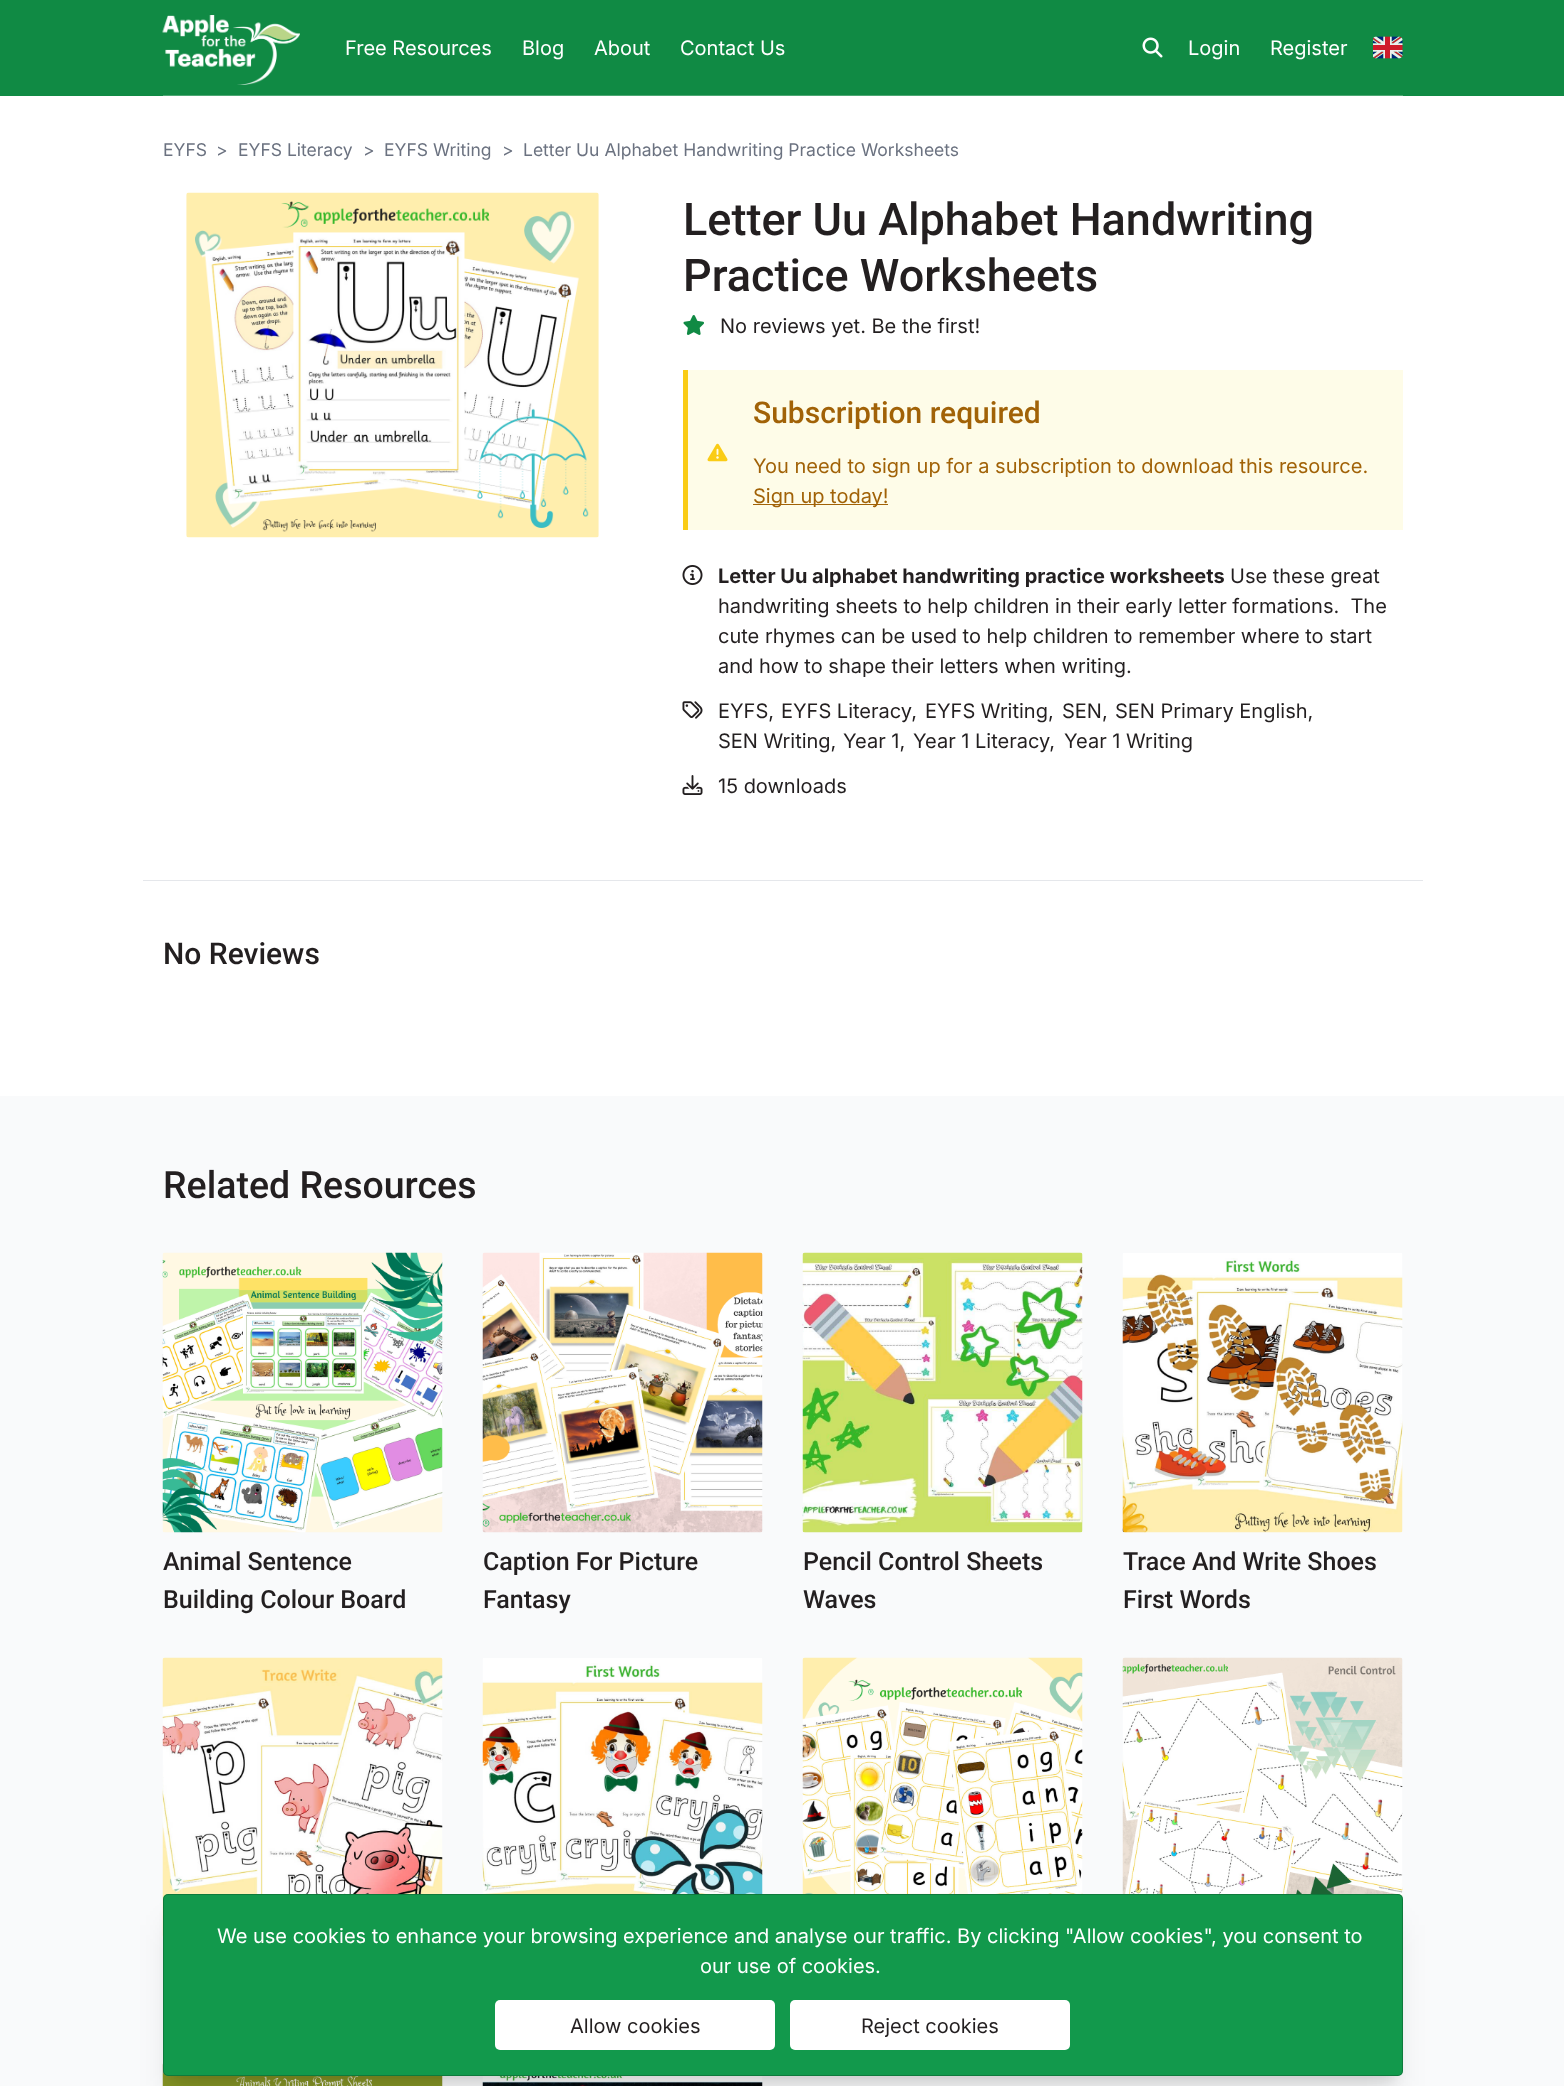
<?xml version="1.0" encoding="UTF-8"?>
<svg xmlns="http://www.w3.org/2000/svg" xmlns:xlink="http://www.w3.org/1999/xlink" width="1564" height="2086">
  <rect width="100%" height="100%" fill="#ffffff" />
  <rect width="1564" height="96" fill="#108a44" />
  <rect x="163" y="95" width="1240" height="1" fill="#4ca773" />
  <image x="162" y="15" width="138" height="70" xlink:href="image1.png" />
  <image x="1142" y="37" width="21" height="21" xlink:href="image2.png" />
  <image x="1373" y="36" width="30" height="23" xlink:href="image3.png" />
  <image x="186" y="192" width="413" height="346" xlink:href="image4.png" />
  <image x="683" y="315" width="21" height="20" xlink:href="image5.png" />
  <rect x="688" y="370" width="715" height="160" fill="#fefce8" />
  <rect x="683" y="370" width="5" height="160" fill="#facc15" />
  <image x="707" y="443" width="21" height="19" xlink:href="image6.png" />
  <rect x="753" y="504" width="135" height="1" fill="#a16207" />
  <image x="682" y="565" width="21" height="20" xlink:href="image7.png" />
  <image x="682" y="701" width="21" height="18" xlink:href="image8.png" />
  <image x="682" y="775" width="21" height="20" xlink:href="image9.png" />
  <rect x="143" y="880" width="1280" height="1" fill="#e5e7eb" />
  <rect y="1096" width="1564" height="990" fill="#f9fafb" />
  <image x="162" y="1252" width="281" height="281" xlink:href="image10.png" />
  <image x="482" y="1252" width="281" height="281" xlink:href="image11.png" />
  <image x="802" y="1252" width="281" height="281" xlink:href="image12.png" />
  <image x="1122" y="1253" width="281" height="280" xlink:href="image13.png" />
  <image x="162" y="1657" width="281" height="280" xlink:href="image14.png" />
  <image x="482" y="1658" width="281" height="236" xlink:href="image15.png" />
  <image x="802" y="1657" width="281" height="237" xlink:href="image16.png" />
  <image x="1122" y="1657" width="281" height="242" xlink:href="image17.png" />
  <image x="162" y="2063" width="281" height="23" xlink:href="image18.png" />
  <image x="482" y="2076" width="281" height="10" xlink:href="image19.png" />
  <rect x="170" y="1911" width="1225" height="168" fill="#000000" fill-opacity="0.1" filter="blur(6px)" />
  <rect x="169" y="1925" width="1227" height="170" fill="#000000" fill-opacity="0.1" filter="blur(15.5px)" />
  <rect x="163" y="1894" width="1240" height="182" rx="5" fill="#12994c" />
  <rect x="163.5" y="1894.5" width="1239" height="181" rx="4.5" fill="none" stroke="#000000" stroke-opacity="0.2" />
  <rect x="495" y="2000" width="280" height="50" rx="5" fill="#ffffff" />
  <rect x="790" y="2000" width="280" height="50" rx="5" fill="#ffffff" />
  <text x="345" y="55" style="font-family: Inter; font-size: 20px; fill: #ffffff">Free Resources</text>
  <text x="522" y="55" style="font-family: Inter; font-size: 20px; fill: #ffffff">Blog</text>
  <text x="594" y="55" style="font-family: Inter; font-size: 20px; fill: #ffffff">About</text>
  <text x="680" y="55" style="font-family: Inter; font-size: 20px; fill: #ffffff">Contact Us</text>
  <text x="1188" y="55" style="font-family: Inter; font-size: 20px; fill: #ffffff">Login</text>
  <text x="1270" y="55" style="font-family: Inter; font-size: 20px; fill: #ffffff">Register</text>
  <text x="163" y="156" style="font-family: Inter; font-size: 17.5px; fill: #6b7280">EYFS</text>
  <text x="216" y="156" style="font-family: Inter; font-size: 17.5px; fill: #6b7280">&gt;</text>
  <text x="238" y="156" style="font-family: Inter; font-size: 17.5px; fill: #6b7280">EYFS Literacy</text>
  <text x="363" y="156" style="font-family: Inter; font-size: 17.5px; fill: #6b7280">&gt;</text>
  <text x="384" y="156" style="font-family: Inter; font-size: 17.5px; fill: #6b7280">EYFS Writing</text>
  <text x="502" y="156" style="font-family: Inter; font-size: 17.5px; fill: #6b7280">&gt;</text>
  <text x="523" y="156" style="font-family: Inter; font-size: 17.5px; fill: #6b7280">Letter Uu Alphabet Handwriting Practice Worksheets</text>
  <text x="683" y="235" style="font-family: Roboto; font-size: 45px; font-weight: 500; fill: #231f20">Letter Uu Alphabet Handwriting</text>
  <text x="683" y="291" style="font-family: Roboto; font-size: 45px; font-weight: 500; fill: #231f20">Practice Worksheets</text>
  <text x="720" y="333" style="font-family: Inter; font-size: 20px; fill: #231f20">No reviews yet. Be the first!</text>
  <text x="753" y="423" style="font-family: Roboto; font-size: 30px; font-weight: 500; fill: #a16207">Subscription required</text>
  <text x="753" y="473" style="font-family: Inter; font-size: 20px; fill: #a16207">You need to sign up for a subscription to download this resource.</text>
  <text x="753" y="503" style="font-family: Inter; font-size: 20px; fill: #a16207">Sign up today!</text>
  <text x="718" y="583" style="font-family: Inter; font-size: 20px; font-weight: bold; fill: #231f20">Letter Uu alphabet handwriting practice worksheets</text>
  <text x="1230" y="583" style="font-family: Inter; font-size: 20px; fill: #231f20">Use these great</text>
  <text x="718" y="613" style="font-family: Inter; font-size: 20px; fill: #231f20" xml:space="preserve">handwriting sheets to help children in their early letter formations.  The</text>
  <text x="718" y="643" style="font-family: Inter; font-size: 20px; fill: #231f20">cute rhymes can be used to help children to remember where to start</text>
  <text x="718" y="673" style="font-family: Inter; font-size: 20px; fill: #231f20">and how to shape their letters when writing.</text>
  <text x="718" y="718" style="font-family: Inter; font-size: 20px; fill: #231f20">EYFS,</text>
  <text x="781" y="718" style="font-family: Inter; font-size: 20px; fill: #231f20">EYFS Literacy,</text>
  <text x="925" y="718" style="font-family: Inter; font-size: 20px; fill: #231f20">EYFS Writing,</text>
  <text x="1062" y="718" style="font-family: Inter; font-size: 20px; fill: #231f20">SEN,</text>
  <text x="1115" y="718" style="font-family: Inter; font-size: 20px; fill: #231f20">SEN Primary English,</text>
  <text x="718" y="748" style="font-family: Inter; font-size: 20px; fill: #231f20">SEN Writing,</text>
  <text x="843" y="748" style="font-family: Inter; font-size: 20px; fill: #231f20">Year 1,</text>
  <text x="913" y="748" style="font-family: Inter; font-size: 20px; fill: #231f20">Year 1 Literacy,</text>
  <text x="1064" y="748" style="font-family: Inter; font-size: 20px; fill: #231f20">Year 1 Writing</text>
  <text x="718" y="793" style="font-family: Inter; font-size: 20px; fill: #231f20">15 downloads</text>
  <text x="163" y="964" style="font-family: Roboto; font-size: 30px; font-weight: 500; fill: #231f20">No Reviews</text>
  <text x="163" y="1198" style="font-family: Roboto; font-size: 37.5px; font-weight: 500; fill: #231f20">Related Resources</text>
  <text x="163" y="1570" style="font-family: Roboto; font-size: 25px; font-weight: 500; fill: #231f20">Animal Sentence</text>
  <text x="163" y="1608" style="font-family: Roboto; font-size: 25px; font-weight: 500; fill: #231f20">Building Colour Board</text>
  <text x="483" y="1570" style="font-family: Roboto; font-size: 25px; font-weight: 500; fill: #231f20">Caption For Picture</text>
  <text x="483" y="1608" style="font-family: Roboto; font-size: 25px; font-weight: 500; fill: #231f20">Fantasy</text>
  <text x="803" y="1570" style="font-family: Roboto; font-size: 25px; font-weight: 500; fill: #231f20">Pencil Control Sheets</text>
  <text x="803" y="1608" style="font-family: Roboto; font-size: 25px; font-weight: 500; fill: #231f20">Waves</text>
  <text x="1123" y="1570" style="font-family: Roboto; font-size: 25px; font-weight: 500; fill: #231f20">Trace And Write Shoes</text>
  <text x="1123" y="1608" style="font-family: Roboto; font-size: 25px; font-weight: 500; fill: #231f20">First Words</text>
  <text x="217" y="1943" style="font-family: Inter; font-size: 20px; fill: #ffffff">We use cookies to enhance your browsing experience and analyse our traffic. By clicking "Allow cookies", you consent to</text>
  <text x="700" y="1973" style="font-family: Inter; font-size: 20px; fill: #ffffff">our use of cookies.</text>
  <text x="570" y="2033" style="font-family: Inter; font-size: 20px; fill: #231f20">Allow cookies</text>
  <text x="861" y="2033" style="font-family: Inter; font-size: 20px; fill: #231f20">Reject cookies</text>
</svg>
